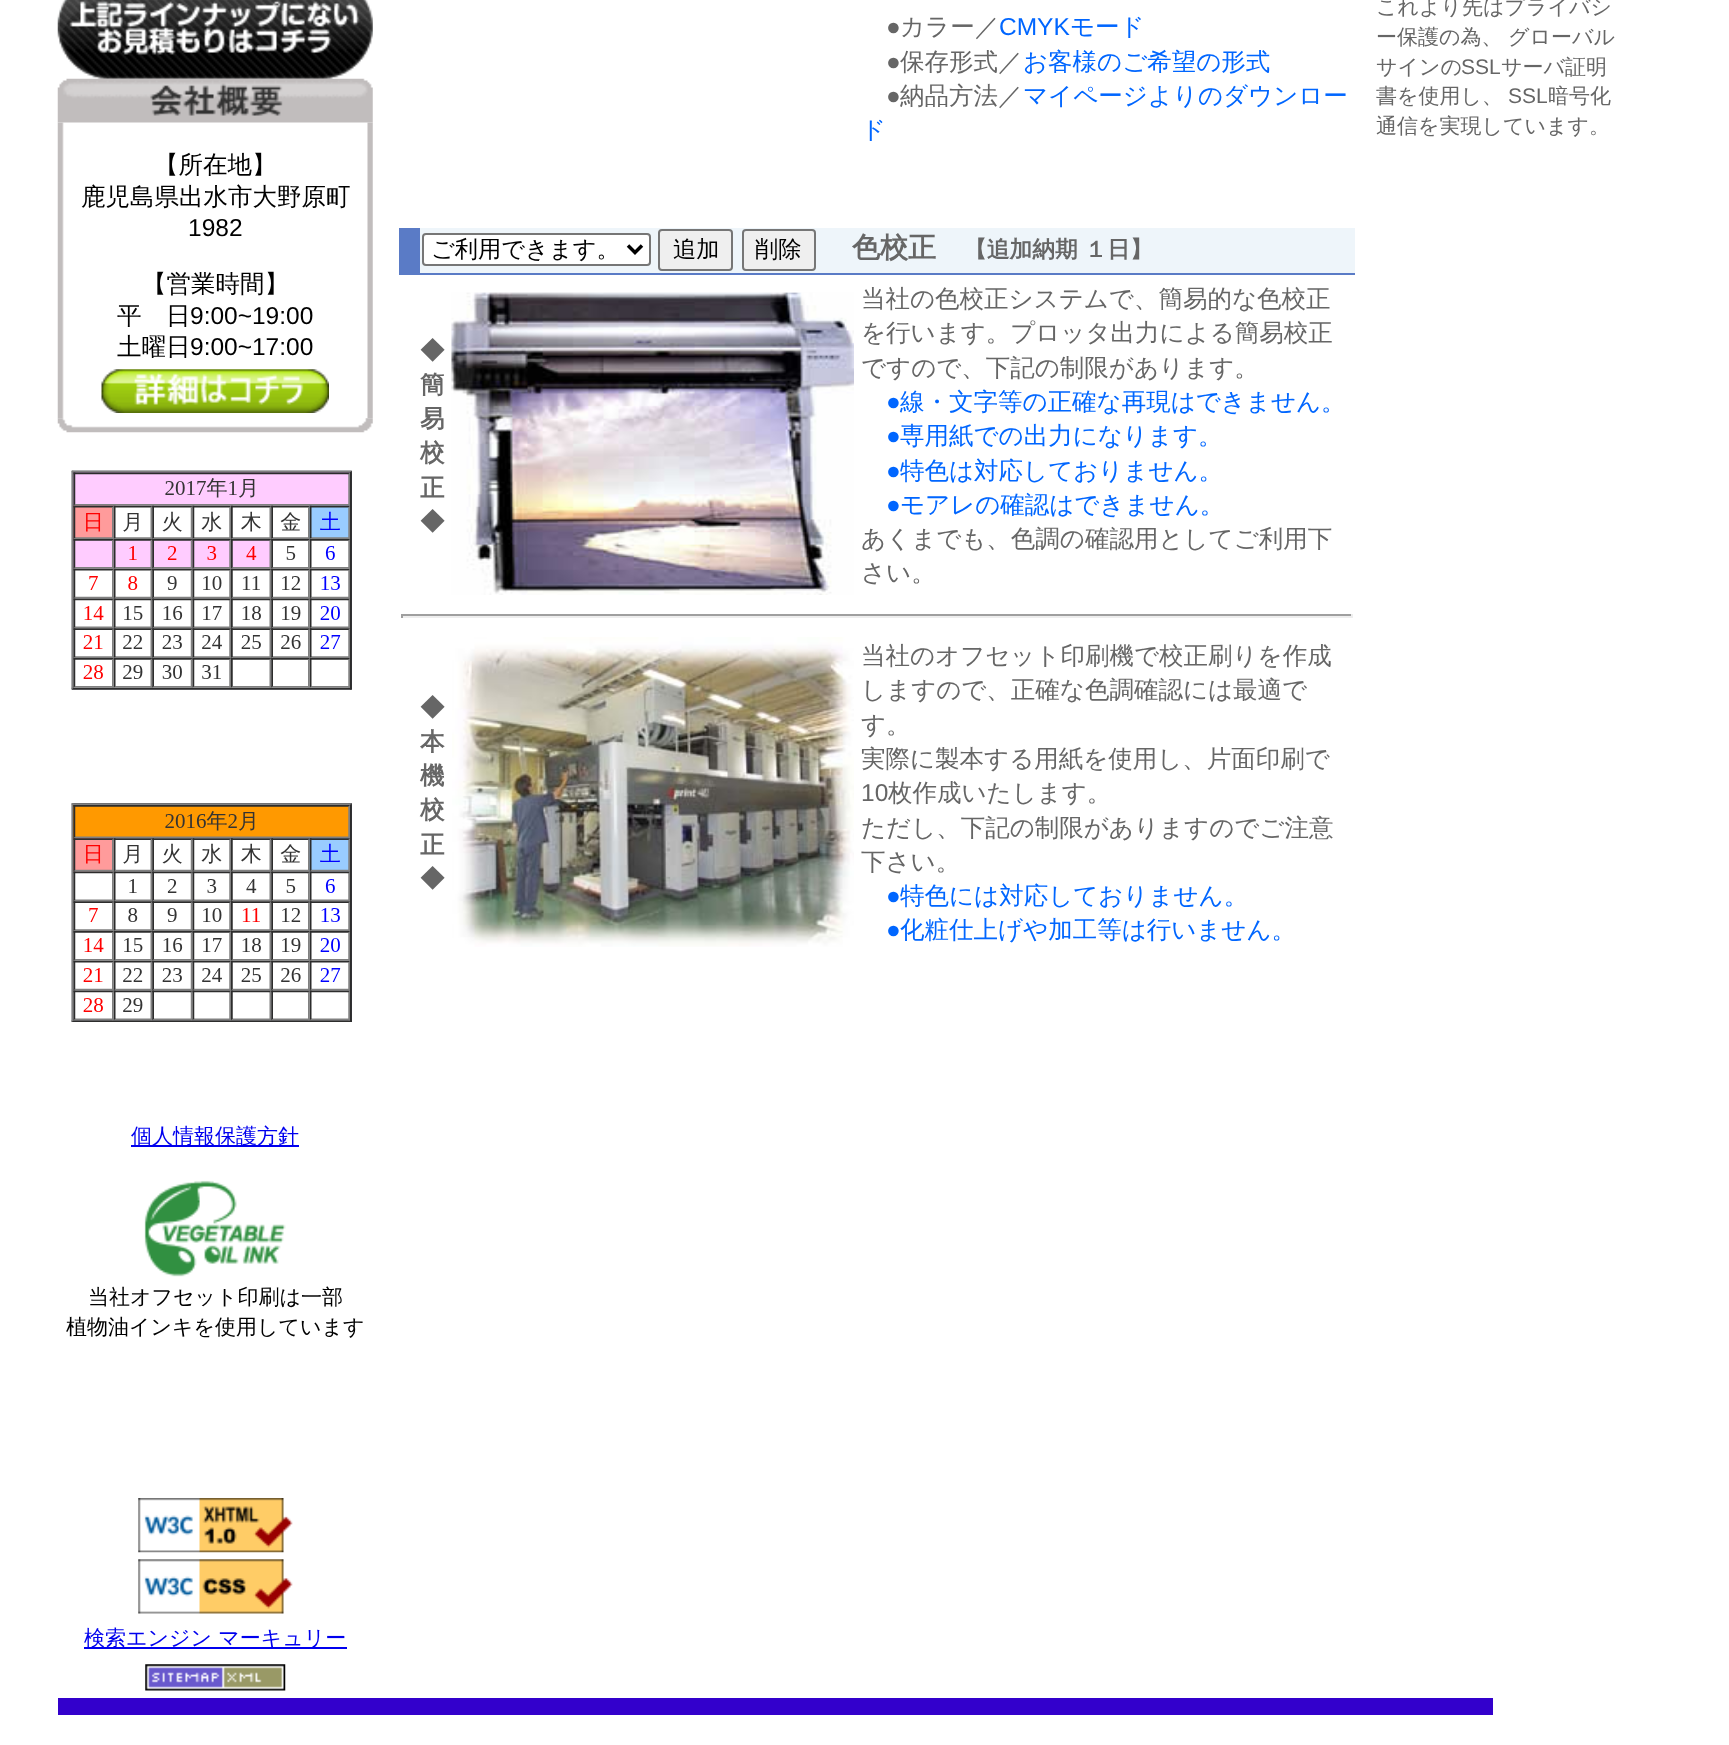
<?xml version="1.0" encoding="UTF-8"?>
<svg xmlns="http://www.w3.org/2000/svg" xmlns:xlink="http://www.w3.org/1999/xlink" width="1729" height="1745">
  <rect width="100%" height="100%" fill="#ffffff" />
  <image x="57" y="0" width="316" height="79" xlink:href="image1.png" />
  <image x="57" y="122" width="316" height="297" xlink:href="image3.png" />
  <image x="57" y="78" width="316" height="45" xlink:href="image2.png" />
  <image x="101" y="369" width="228" height="44" xlink:href="image4.png" />
  <image x="57" y="418" width="316" height="15" xlink:href="image5.png" />
  <image x="71" y="470" width="281" height="220" xlink:href="image6.png" />
  <image x="71" y="803" width="281" height="219" xlink:href="image7.png" />
  <rect x="131" y="1145" width="168" height="2" fill="#0000ee" />
  <image x="144" y="1180" width="142" height="97" xlink:href="image8.png" />
  <image x="138" y="1498" width="155" height="55" xlink:href="image9.png" />
  <image x="138" y="1559" width="155" height="55" xlink:href="image10.png" />
  <rect x="84" y="1647" width="263" height="2" fill="#0000ee" />
  <image x="145" y="1664" width="141" height="27" xlink:href="image11.png" />
  <rect x="420" y="228" width="935" height="45" fill="#eef5fa" />
  <rect x="420" y="273" width="935" height="2" fill="#5a7bc6" />
  <rect x="399" y="228" width="21" height="47" fill="#5a7bc6" />
  <rect x="423" y="234" width="227" height="31" rx="3" fill="#ffffff" stroke="#767676" stroke-width="2" />
  <path d="M 628 245.5 l 7 7 l 7 -7" fill="none" stroke="#000000" stroke-width="3.5" />
  <rect x="659" y="230" width="73" height="40" rx="3" fill="#efefef" stroke="#767676" stroke-width="2" />
  <rect x="743" y="230" width="72" height="40" rx="3" fill="#efefef" stroke="#767676" stroke-width="2" />
  <image x="451" y="292" width="403" height="303" xlink:href="image12.png" />
  <rect x="401" y="614" width="952" height="2" fill="#9f9f9f" />
  <rect x="1351" y="614" width="2" height="4" fill="#eeeeee" />
  <rect x="401" y="616" width="952" height="2" fill="#eeeeee" />
  <rect x="401" y="614" width="2" height="4" fill="#9f9f9f" />
  <image x="452" y="637" width="402" height="310" xlink:href="image13.png" />
  <rect x="58" y="1698" width="1435" height="17" fill="#3300cc" />
  <text x="154" y="173" style="font-family: WenQuanYi Zen Hei; font-size: 24.5px; font-weight: 500; fill: #000000">【所在地】</text>
  <text x="81" y="205" style="font-family: WenQuanYi Zen Hei; font-size: 24.5px; font-weight: 500; fill: #000000">鹿児島県出水市大野原町</text>
  <text x="188" y="236" style="font-family: Liberation Sans; font-size: 24.5px; fill: #000000">1982</text>
  <text x="142" y="292" style="font-family: WenQuanYi Zen Hei; font-size: 24.5px; font-weight: 500; fill: #000000">【営業時間】</text>
  <text x="117" y="324" style="font-family: WenQuanYi Zen Hei; font-size: 24.5px; font-weight: 500; fill: #000000">平　日</text>
  <text x="190" y="324" style="font-family: Liberation Sans; font-size: 24.5px; fill: #000000">9:00~19:00</text>
  <text x="117" y="355" style="font-family: WenQuanYi Zen Hei; font-size: 24.5px; font-weight: 500; fill: #000000">土曜日</text>
  <text x="190" y="355" style="font-family: Liberation Sans; font-size: 24.5px; fill: #000000">9:00~17:00</text>
  <text x="131" y="1143" style="font-family: WenQuanYi Zen Hei; font-size: 21px; font-weight: 500; fill: #0000ee">個人情報保護方針</text>
  <text x="88" y="1304" style="font-family: WenQuanYi Zen Hei; font-size: 21px; font-weight: 500; fill: #000000">当社オフセット印刷は一部</text>
  <text x="66" y="1334" style="font-family: WenQuanYi Zen Hei; font-size: 21px; font-weight: 500; fill: #000000">植物油インキを使用しています</text>
  <text x="84" y="1645" style="font-family: WenQuanYi Zen Hei; font-size: 21px; font-weight: 500; fill: #0000ee">検索エンジン マーキュリー</text>
  <text x="886" y="35" style="font-family: Liberation Sans; font-size: 24.5px; fill: #666666">●</text>
  <text x="900" y="35" style="font-family: WenQuanYi Zen Hei; font-size: 24.5px; font-weight: 500; fill: #666666">カラー／</text>
  <text x="999" y="35" style="font-family: Liberation Sans; font-size: 24.5px; fill: #0066ff">CMYK</text>
  <text x="1070" y="35" style="font-family: WenQuanYi Zen Hei; font-size: 24.5px; font-weight: 500; fill: #0066ff">モード</text>
  <text x="886" y="70" style="font-family: Liberation Sans; font-size: 24.5px; fill: #666666">●</text>
  <text x="900" y="70" style="font-family: WenQuanYi Zen Hei; font-size: 24.5px; font-weight: 500; fill: #666666">保存形式／</text>
  <text x="1023" y="70" style="font-family: WenQuanYi Zen Hei; font-size: 24.5px; font-weight: 500; fill: #0066ff">お客様のご希望の形式</text>
  <text x="886" y="104" style="font-family: Liberation Sans; font-size: 24.5px; fill: #666666">●</text>
  <text x="900" y="104" style="font-family: WenQuanYi Zen Hei; font-size: 24.5px; font-weight: 500; fill: #666666">納品方法／</text>
  <text x="1023" y="104" style="font-family: WenQuanYi Zen Hei; font-size: 24.5px; font-weight: 500; fill: #0066ff">マイページよりのダウンロー</text>
  <text x="861" y="138" style="font-family: WenQuanYi Zen Hei; font-size: 24.5px; font-weight: 500; fill: #0066ff">ド</text>
  <text x="431" y="257" style="font-family: WenQuanYi Zen Hei; font-size: 23.25px; font-weight: 500; fill: #000000">ご利用できます。</text>
  <text x="673" y="257" style="font-family: WenQuanYi Zen Hei; font-size: 23.25px; font-weight: 500; fill: #000000">追加</text>
  <text x="755" y="257" style="font-family: WenQuanYi Zen Hei; font-size: 23.25px; font-weight: 500; fill: #000000">削除</text>
  <text x="852" y="257" style="font-family: WenQuanYi Zen Hei; font-size: 28px; font-weight: bold; fill: #666666">色校正</text>
  <text x="964" y="257" style="font-family: WenQuanYi Zen Hei; font-size: 22.75px; font-weight: bold; fill: #666666">【追加納期 １日】</text>
  <text x="420" y="359" style="font-family: WenQuanYi Zen Hei; font-size: 24.5px; font-weight: bold; fill: #666666">◆</text>
  <text x="420" y="393" style="font-family: WenQuanYi Zen Hei; font-size: 24.5px; font-weight: bold; fill: #666666">簡</text>
  <text x="420" y="427" style="font-family: WenQuanYi Zen Hei; font-size: 24.5px; font-weight: bold; fill: #666666">易</text>
  <text x="420" y="461" style="font-family: WenQuanYi Zen Hei; font-size: 24.5px; font-weight: bold; fill: #666666">校</text>
  <text x="420" y="496" style="font-family: WenQuanYi Zen Hei; font-size: 24.5px; font-weight: bold; fill: #666666">正</text>
  <text x="420" y="530" style="font-family: WenQuanYi Zen Hei; font-size: 24.5px; font-weight: bold; fill: #666666">◆</text>
  <text x="861" y="307" style="font-family: WenQuanYi Zen Hei; font-size: 24.5px; font-weight: 500; fill: #666666">当社の色校正システムで、簡易的な色校正</text>
  <text x="861" y="341" style="font-family: WenQuanYi Zen Hei; font-size: 24.5px; font-weight: 500; fill: #666666">を行います。プロッタ出力による簡易校正</text>
  <text x="861" y="376" style="font-family: WenQuanYi Zen Hei; font-size: 24.5px; font-weight: 500; fill: #666666">ですので、下記の制限があります。</text>
  <text x="886" y="410" style="font-family: Liberation Sans; font-size: 24.5px; fill: #0066ff">●</text>
  <text x="900" y="410" style="font-family: WenQuanYi Zen Hei; font-size: 24.5px; font-weight: 500; fill: #0066ff">線・文字等の正確な再現はできません。</text>
  <text x="886" y="444" style="font-family: Liberation Sans; font-size: 24.5px; fill: #0066ff">●</text>
  <text x="900" y="444" style="font-family: WenQuanYi Zen Hei; font-size: 24.5px; font-weight: 500; fill: #0066ff">専用紙での出力になります。</text>
  <text x="886" y="479" style="font-family: Liberation Sans; font-size: 24.5px; fill: #0066ff">●</text>
  <text x="900" y="479" style="font-family: WenQuanYi Zen Hei; font-size: 24.5px; font-weight: 500; fill: #0066ff">特色は対応しておりません。</text>
  <text x="886" y="513" style="font-family: Liberation Sans; font-size: 24.5px; fill: #0066ff">●</text>
  <text x="900" y="513" style="font-family: WenQuanYi Zen Hei; font-size: 24.5px; font-weight: 500; fill: #0066ff">モアレの確認はできません。</text>
  <text x="861" y="547" style="font-family: WenQuanYi Zen Hei; font-size: 24.5px; font-weight: 500; fill: #666666">あくまでも、色調の確認用としてご利用下</text>
  <text x="861" y="581" style="font-family: WenQuanYi Zen Hei; font-size: 24.5px; font-weight: 500; fill: #666666">さい。</text>
  <text x="420" y="716" style="font-family: WenQuanYi Zen Hei; font-size: 24.5px; font-weight: bold; fill: #666666">◆</text>
  <text x="420" y="750" style="font-family: WenQuanYi Zen Hei; font-size: 24.5px; font-weight: bold; fill: #666666">本</text>
  <text x="420" y="784" style="font-family: WenQuanYi Zen Hei; font-size: 24.5px; font-weight: bold; fill: #666666">機</text>
  <text x="420" y="818" style="font-family: WenQuanYi Zen Hei; font-size: 24.5px; font-weight: bold; fill: #666666">校</text>
  <text x="420" y="853" style="font-family: WenQuanYi Zen Hei; font-size: 24.5px; font-weight: bold; fill: #666666">正</text>
  <text x="420" y="887" style="font-family: WenQuanYi Zen Hei; font-size: 24.5px; font-weight: bold; fill: #666666">◆</text>
  <text x="861" y="664" style="font-family: WenQuanYi Zen Hei; font-size: 24.5px; font-weight: 500; fill: #666666">当社のオフセット印刷機で校正刷りを作成</text>
  <text x="861" y="698" style="font-family: WenQuanYi Zen Hei; font-size: 24.5px; font-weight: 500; fill: #666666">しますので、正確な色調確認には最適で</text>
  <text x="861" y="733" style="font-family: WenQuanYi Zen Hei; font-size: 24.5px; font-weight: 500; fill: #666666">す。</text>
  <text x="861" y="767" style="font-family: WenQuanYi Zen Hei; font-size: 24.5px; font-weight: 500; fill: #666666">実際に製本する用紙を使用し、片面印刷で</text>
  <text x="861" y="801" style="font-family: Liberation Sans; font-size: 24.5px; fill: #666666">10</text>
  <text x="888" y="801" style="font-family: WenQuanYi Zen Hei; font-size: 24.5px; font-weight: 500; fill: #666666">枚作成いたします。</text>
  <text x="861" y="836" style="font-family: WenQuanYi Zen Hei; font-size: 24.5px; font-weight: 500; fill: #666666">ただし、下記の制限がありますのでご注意</text>
  <text x="861" y="870" style="font-family: WenQuanYi Zen Hei; font-size: 24.5px; font-weight: 500; fill: #666666">下さい。</text>
  <text x="886" y="904" style="font-family: Liberation Sans; font-size: 24.5px; fill: #0066ff">●</text>
  <text x="900" y="904" style="font-family: WenQuanYi Zen Hei; font-size: 24.5px; font-weight: 500; fill: #0066ff">特色には対応しておりません。</text>
  <text x="886" y="938" style="font-family: Liberation Sans; font-size: 24.5px; fill: #0066ff">●</text>
  <text x="900" y="938" style="font-family: WenQuanYi Zen Hei; font-size: 24.5px; font-weight: 500; fill: #0066ff">化粧仕上げや加工等は行いません。</text>
  <text x="1376" y="14" style="font-family: WenQuanYi Zen Hei; font-size: 21px; font-weight: 500; fill: #666666">これより先はプライバシ</text>
  <text x="1376" y="44" style="font-family: WenQuanYi Zen Hei; font-size: 21px; font-weight: 500; fill: #666666">ー保護の為、</text>
  <text x="1508" y="44" style="font-family: WenQuanYi Zen Hei; font-size: 21px; font-weight: 500; fill: #666666">グローバル</text>
  <text x="1376" y="74" style="font-family: WenQuanYi Zen Hei; font-size: 21px; font-weight: 500; fill: #666666">サインの</text>
  <text x="1461" y="74" style="font-family: Liberation Sans; font-size: 21px; fill: #666666">SSL</text>
  <text x="1501" y="74" style="font-family: WenQuanYi Zen Hei; font-size: 21px; font-weight: 500; fill: #666666">サーバ証明</text>
  <text x="1376" y="103" style="font-family: WenQuanYi Zen Hei; font-size: 21px; font-weight: 500; fill: #666666">書を使用し、</text>
  <text x="1508" y="103" style="font-family: Liberation Sans; font-size: 21px; fill: #666666">SSL</text>
  <text x="1548" y="103" style="font-family: WenQuanYi Zen Hei; font-size: 21px; font-weight: 500; fill: #666666">暗号化</text>
  <text x="1376" y="133" style="font-family: WenQuanYi Zen Hei; font-size: 21px; font-weight: 500; fill: #666666">通信を実現しています。</text>
</svg>
